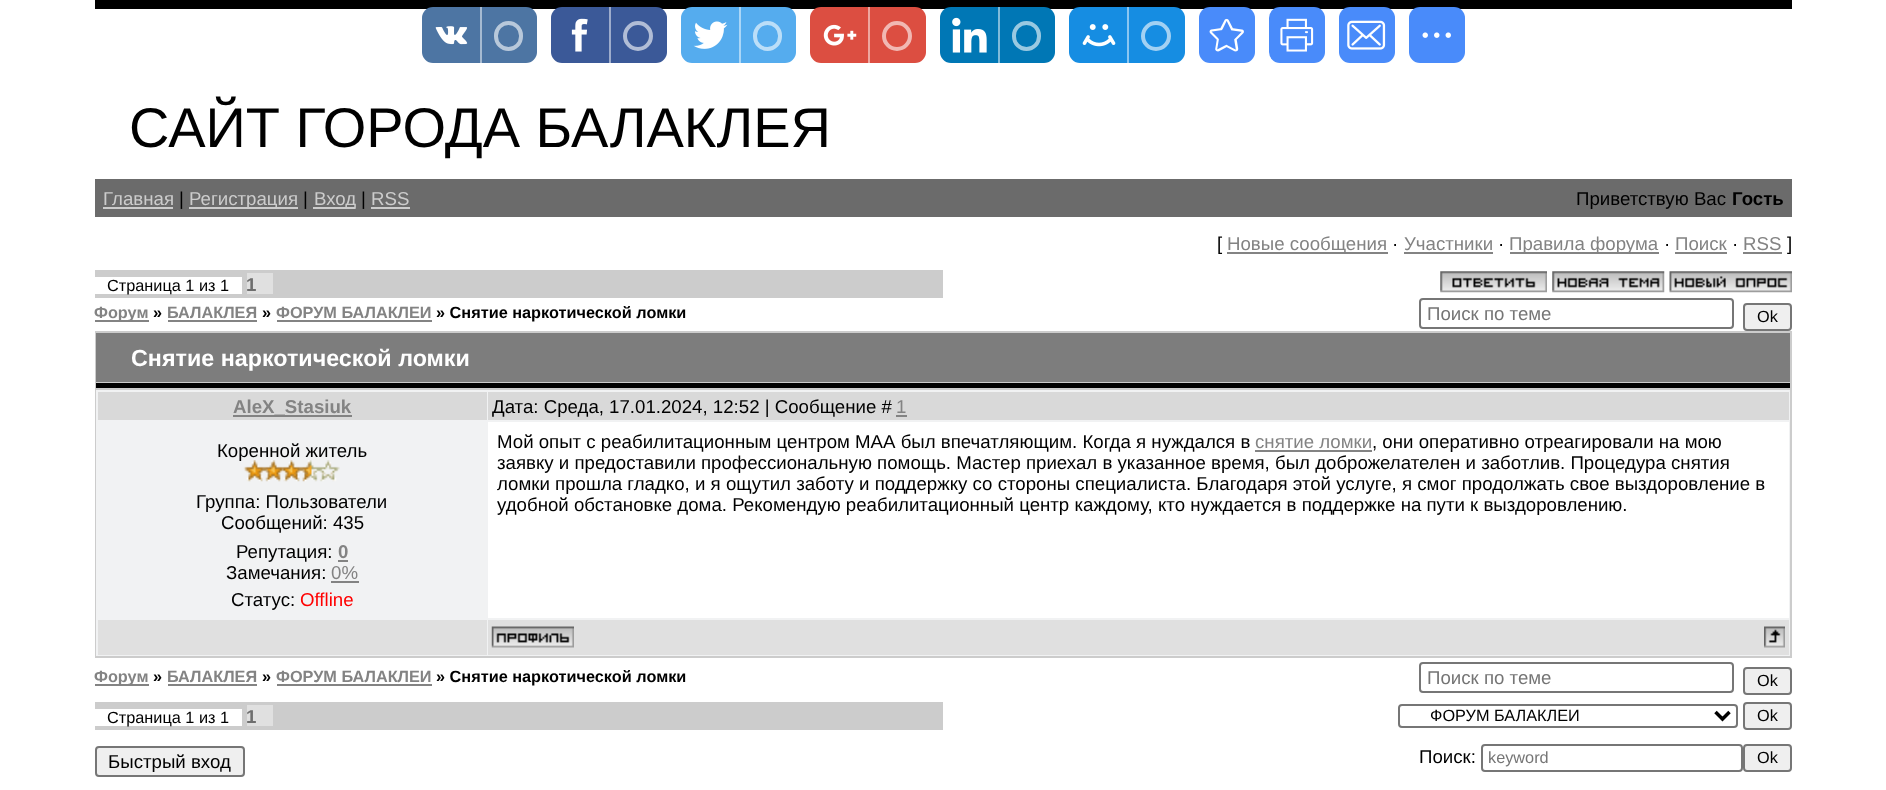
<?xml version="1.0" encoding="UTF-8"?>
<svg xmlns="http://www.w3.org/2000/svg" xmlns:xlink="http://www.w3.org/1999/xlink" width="1886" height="790">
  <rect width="100%" height="100%" fill="#ffffff" />
  <rect x="95" width="1697" height="9" fill="#000000" />
  <rect x="422" y="7" width="115" height="56" rx="11" fill="#4d75a3" />
  <image x="435" y="26" width="33" height="19" xlink:href="image1.png" />
  <rect x="480" y="7" width="2" height="56" fill="#a6bad1" />
  <rect x="496" y="23" width="25" height="26" rx="12.5" fill="none" stroke="#b8c8da" stroke-width="4" />
  <rect x="551" y="7" width="116" height="56" rx="11" fill="#3b5998" />
  <image x="571" y="18" width="17" height="34" xlink:href="image2.png" />
  <rect x="609" y="7" width="2" height="56" fill="#9daccc" />
  <circle cx="638" cy="36" r="13" fill="none" stroke="#b1bdd6" stroke-width="4" />
  <rect x="681" y="7" width="115" height="56" rx="11" fill="#55acee" />
  <image x="693" y="21" width="35" height="28" xlink:href="image3.png" />
  <rect x="739" y="7" width="2" height="56" fill="#aad6f7" />
  <rect x="755" y="23" width="25" height="26" rx="12.5" fill="none" stroke="#bbdef8" stroke-width="4" />
  <rect x="810" y="7" width="116" height="56" rx="11" fill="#dc4e41" />
  <image x="823" y="24" width="34" height="22" xlink:href="image4.png" />
  <rect x="868" y="7" width="2" height="56" fill="#eea7a0" />
  <circle cx="897" cy="36" r="13" fill="none" stroke="#f1b8b3" stroke-width="4" />
  <rect x="940" y="7" width="115" height="56" rx="11" fill="#0077b5" />
  <image x="952" y="17" width="35" height="36" xlink:href="image5.png" />
  <rect x="998" y="7" width="2" height="56" fill="#80bbda" />
  <rect x="1014" y="23" width="25" height="26" rx="12.5" fill="none" stroke="#99c9e1" stroke-width="4" />
  <rect x="1069" y="7" width="116" height="56" rx="11" fill="#168de2" />
  <image x="1082" y="24" width="34" height="23" xlink:href="image6.png" />
  <rect x="1127" y="7" width="2" height="56" fill="#8bc6f1" />
  <circle cx="1156" cy="36" r="13" fill="none" stroke="#a2d1f3" stroke-width="4" />
  <rect x="1199" y="7" width="56" height="56" rx="11" fill="#498bfa" />
  <image x="1209" y="18" width="35" height="34" xlink:href="image7.png" />
  <rect x="1269" y="7" width="56" height="56" rx="11" fill="#498bfa" />
  <image x="1280" y="18" width="34" height="34" xlink:href="image8.png" />
  <rect x="1339" y="7" width="56" height="56" rx="11" fill="#498bfa" />
  <image x="1347" y="20" width="39" height="30" xlink:href="image9.png" />
  <rect x="1409" y="7" width="56" height="56" rx="11" fill="#498bfa" />
  <image x="1422" y="32" width="29" height="6" xlink:href="image10.png" />
  <rect x="95" y="179" width="1697" height="38" fill="#6b6b6b" />
  <rect x="103" y="207" width="70" height="2" fill="#cccccc" />
  <rect x="189" y="207" width="109" height="2" fill="#cccccc" />
  <rect x="313" y="207" width="42" height="2" fill="#cccccc" />
  <rect x="371" y="207" width="39" height="2" fill="#cccccc" />
  <rect x="1227" y="252" width="161" height="2" fill="#838383" />
  <rect x="1404" y="252" width="89" height="2" fill="#838383" />
  <rect x="1510" y="252" width="149" height="2" fill="#838383" />
  <rect x="1675" y="252" width="52" height="2" fill="#838383" />
  <rect x="1743" y="252" width="39" height="2" fill="#838383" />
  <rect x="95" y="270" width="848" height="28" fill="#cccccc" />
  <rect x="95" y="277" width="147" height="17" fill="#ffffff" />
  <rect x="247" y="273" width="26" height="21" fill="#e0e0e0" />
  <image x="1440" y="271" width="107" height="22" xlink:href="image11.png" />
  <image x="1552" y="271" width="113" height="22" xlink:href="image12.png" />
  <image x="1669" y="271" width="123" height="22" xlink:href="image13.png" />
  <rect x="95" y="320" width="54" height="2" fill="#838383" />
  <rect x="168" y="320" width="89" height="2" fill="#838383" />
  <rect x="277" y="320" width="155" height="2" fill="#838383" />
  <rect x="1420" y="299" width="313" height="29" rx="3" fill="none" stroke="#767676" stroke-width="2" />
  <rect x="1744" y="304" width="47" height="26" rx="3" fill="#efefef" stroke="#767676" stroke-width="2" />
  <rect x="95" y="331" width="1697" height="327" fill="#cccccc" />
  <rect x="96" y="333" width="1694" height="49" fill="#7d7d7d" />
  <rect x="96" y="383" width="1694" height="5" fill="#000000" />
  <rect x="96" y="390" width="1694" height="266" fill="#f1f2f3" />
  <rect x="98" y="392" width="389" height="28" fill="#d9d9d9" />
  <rect x="233" y="415" width="119" height="2" fill="#838383" />
  <rect x="488" y="392" width="1301" height="28" fill="#d9d9d9" />
  <rect x="896" y="415" width="11" height="2" fill="#838383" />
  <rect x="338" y="560" width="10" height="2" fill="#838383" />
  <rect x="331" y="581" width="28" height="2" fill="#838383" />
  <rect x="488" y="422" width="1301" height="196" fill="#ffffff" />
  <rect x="1255" y="450" width="117" height="2" fill="#838383" />
  <rect x="98" y="620" width="389" height="35" fill="#e0e0e0" />
  <rect x="488" y="620" width="1301" height="35" fill="#e0e0e0" />
  <image x="491" y="626" width="83" height="22" xlink:href="image15.png" />
  <image x="1764" y="626" width="21" height="22" xlink:href="image16.png" />
  <rect x="95" y="684" width="54" height="2" fill="#838383" />
  <rect x="168" y="684" width="89" height="2" fill="#838383" />
  <rect x="277" y="684" width="155" height="2" fill="#838383" />
  <rect x="1420" y="663" width="313" height="29" rx="3" fill="none" stroke="#767676" stroke-width="2" />
  <rect x="1744" y="668" width="47" height="26" rx="3" fill="#efefef" stroke="#767676" stroke-width="2" />
  <rect x="95" y="702" width="848" height="28" fill="#cccccc" />
  <rect x="95" y="709" width="147" height="17" fill="#ffffff" />
  <rect x="247" y="705" width="26" height="21" fill="#e0e0e0" />
  <rect x="1399" y="705" width="338" height="22" rx="3" fill="none" stroke="#767676" stroke-width="2" />
  <path d="M 1715.5 712 l 7 7 l 7 -7" fill="none" stroke="#000000" stroke-width="3.5" />
  <rect x="1744" y="703" width="47" height="26" rx="3" fill="#efefef" stroke="#767676" stroke-width="2" />
  <rect x="96" y="747" width="148" height="29" rx="3" fill="#efefef" stroke="#767676" stroke-width="2" />
  <rect x="1482" y="745" width="260" height="26" rx="3" fill="none" stroke="#767676" stroke-width="2" />
  <rect x="1744" y="745" width="47" height="26" rx="3" fill="#efefef" stroke="#767676" stroke-width="2" />
  <text x="129" y="147" style="font-family: Liberation Sans; font-size: 56px; fill: #000000">САЙТ ГОРОДА БАЛАКЛЕЯ</text>
  <text x="103" y="205" style="font-family: Liberation Sans; font-size: 18.67px; fill: #cccccc">Главная</text>
  <text x="179" y="205" style="font-family: Liberation Sans; font-size: 18.67px; fill: #000000">|</text>
  <text x="189" y="205" style="font-family: Liberation Sans; font-size: 18.67px; fill: #cccccc">Регистрация</text>
  <text x="303" y="205" style="font-family: Liberation Sans; font-size: 18.67px; fill: #000000">|</text>
  <text x="314" y="205" style="font-family: Liberation Sans; font-size: 18.67px; fill: #cccccc">Вход</text>
  <text x="361" y="205" style="font-family: Liberation Sans; font-size: 18.67px; fill: #000000">|</text>
  <text x="371" y="205" style="font-family: Liberation Sans; font-size: 18.67px; fill: #cccccc">RSS</text>
  <text x="1576" y="205" style="font-family: Liberation Sans; font-size: 18.67px; fill: #000000">Приветствую Вас</text>
  <text x="1732" y="205" style="font-family: Liberation Sans; font-size: 18.67px; font-weight: bold; fill: #000000">Гость</text>
  <text x="1217" y="250" style="font-family: Liberation Sans; font-size: 18.67px; fill: #000000">[</text>
  <text x="1227" y="250" style="font-family: Liberation Sans; font-size: 18.67px; fill: #838383">Новые сообщения</text>
  <text x="1392" y="250" style="font-family: Liberation Sans; font-size: 18.67px; fill: #000000">·</text>
  <text x="1404" y="250" style="font-family: Liberation Sans; font-size: 18.67px; fill: #838383">Участники</text>
  <text x="1498" y="250" style="font-family: Liberation Sans; font-size: 18.67px; fill: #000000">·</text>
  <text x="1509" y="250" style="font-family: Liberation Sans; font-size: 18.67px; fill: #838383">Правила форума</text>
  <text x="1664" y="250" style="font-family: Liberation Sans; font-size: 18.67px; fill: #000000">·</text>
  <text x="1675" y="250" style="font-family: Liberation Sans; font-size: 18.67px; fill: #838383">Поиск</text>
  <text x="1732" y="250" style="font-family: Liberation Sans; font-size: 18.67px; fill: #000000">·</text>
  <text x="1743" y="250" style="font-family: Liberation Sans; font-size: 18.67px; fill: #838383">RSS</text>
  <text x="1787" y="250" style="font-family: Liberation Sans; font-size: 18.67px; fill: #000000">]</text>
  <text x="107" y="291" style="font-family: Liberation Sans; font-size: 16.3px; fill: #000000">Страница 1 из 1</text>
  <text x="246" y="291" style="font-family: Liberation Sans; font-size: 18.67px; font-weight: bold; fill: #6e6e6e">1</text>
  <text x="94" y="318" style="font-family: Liberation Sans; font-size: 16.3px; font-weight: bold; fill: #838383">Форум</text>
  <text x="153" y="318" style="font-family: Liberation Sans; font-size: 16.3px; font-weight: bold; fill: #000000">»</text>
  <text x="167" y="318" style="font-family: Liberation Sans; font-size: 16.3px; font-weight: bold; fill: #838383">БАЛАКЛЕЯ</text>
  <text x="262" y="318" style="font-family: Liberation Sans; font-size: 16.3px; font-weight: bold; fill: #000000">»</text>
  <text x="276" y="318" style="font-family: Liberation Sans; font-size: 16.3px; font-weight: bold; fill: #838383">ФОРУМ БАЛАКЛЕИ</text>
  <text x="436" y="318" style="font-family: Liberation Sans; font-size: 16.3px; font-weight: bold; fill: #000000">» Снятие наркотической ломки</text>
  <text x="1427" y="320" style="font-family: Liberation Sans; font-size: 18.67px; fill: #757575">Поиск по теме</text>
  <text x="1757" y="322" style="font-family: Liberation Sans; font-size: 16.3px; fill: #000000">Ok</text>
  <text x="131" y="366" style="font-family: Liberation Sans; font-size: 23.3px; font-weight: bold; fill: #ffffff">Снятие наркотической ломки</text>
  <text x="233" y="413" style="font-family: Liberation Sans; font-size: 18.67px; font-weight: bold; fill: #838383">AleX_Stasiuk</text>
  <text x="492" y="413" style="font-family: Liberation Sans; font-size: 18.67px; fill: #000000">Дата: Среда, 17.01.2024, 12:52 | Сообщение #</text>
  <text x="896" y="413" style="font-family: Liberation Sans; font-size: 18.67px; fill: #838383">1</text>
  <text x="217" y="457" style="font-family: Liberation Sans; font-size: 18.67px; fill: #000000">Коренной житель</text>
  <image x="243" y="460" width="97" height="22" xlink:href="image14.png" />
  <text x="196" y="508" style="font-family: Liberation Sans; font-size: 18.67px; fill: #000000">Группа: Пользователи</text>
  <text x="221" y="529" style="font-family: Liberation Sans; font-size: 18.67px; fill: #000000">Сообщений: 435</text>
  <text x="236" y="558" style="font-family: Liberation Sans; font-size: 18.67px; fill: #000000">Репутация:</text>
  <text x="338" y="558" style="font-family: Liberation Sans; font-size: 18.67px; font-weight: bold; fill: #838383">0</text>
  <text x="226" y="579" style="font-family: Liberation Sans; font-size: 18.67px; fill: #000000">Замечания:</text>
  <text x="331" y="579" style="font-family: Liberation Sans; font-size: 18.67px; fill: #838383">0%</text>
  <text x="231" y="606" style="font-family: Liberation Sans; font-size: 18.67px; fill: #000000">Статус:</text>
  <text x="300" y="606" style="font-family: Liberation Sans; font-size: 18.67px; fill: #ff0000">Offline</text>
  <text x="497" y="448" style="font-family: Liberation Sans; font-size: 18.67px; fill: #000000">Мой опыт с реабилитационным центром МАА был впечатляющим. Когда я нуждался в</text>
  <text x="1255" y="448" style="font-family: Liberation Sans; font-size: 18.67px; fill: #838383">снятие ломки</text>
  <text x="1372" y="448" style="font-family: Liberation Sans; font-size: 18.67px; fill: #000000">, они оперативно отреагировали на мою</text>
  <text x="497" y="469" style="font-family: Liberation Sans; font-size: 18.67px; fill: #000000">заявку и предоставили профессиональную помощь. Мастер приехал в указанное время, был доброжелателен и заботлив. Процедура снятия</text>
  <text x="497" y="490" style="font-family: Liberation Sans; font-size: 18.67px; fill: #000000">ломки прошла гладко, и я ощутил заботу и поддержку со стороны специалиста. Благодаря этой услуге, я смог продолжать свое выздоровление в</text>
  <text x="497" y="511" style="font-family: Liberation Sans; font-size: 18.67px; fill: #000000">удобной обстановке дома. Рекомендую реабилитационный центр каждому, кто нуждается в поддержке на пути к выздоровлению.</text>
  <text x="94" y="682" style="font-family: Liberation Sans; font-size: 16.3px; font-weight: bold; fill: #838383">Форум</text>
  <text x="153" y="682" style="font-family: Liberation Sans; font-size: 16.3px; font-weight: bold; fill: #000000">»</text>
  <text x="167" y="682" style="font-family: Liberation Sans; font-size: 16.3px; font-weight: bold; fill: #838383">БАЛАКЛЕЯ</text>
  <text x="262" y="682" style="font-family: Liberation Sans; font-size: 16.3px; font-weight: bold; fill: #000000">»</text>
  <text x="276" y="682" style="font-family: Liberation Sans; font-size: 16.3px; font-weight: bold; fill: #838383">ФОРУМ БАЛАКЛЕИ</text>
  <text x="436" y="682" style="font-family: Liberation Sans; font-size: 16.3px; font-weight: bold; fill: #000000">» Снятие наркотической ломки</text>
  <text x="1427" y="684" style="font-family: Liberation Sans; font-size: 18.67px; fill: #757575">Поиск по теме</text>
  <text x="1757" y="686" style="font-family: Liberation Sans; font-size: 16.3px; fill: #000000">Ok</text>
  <text x="107" y="723" style="font-family: Liberation Sans; font-size: 16.3px; fill: #000000">Страница 1 из 1</text>
  <text x="246" y="723" style="font-family: Liberation Sans; font-size: 18.67px; font-weight: bold; fill: #6e6e6e">1</text>
  <text x="1430" y="721" style="font-family: Liberation Sans; font-size: 16.3px; fill: #000000">ФОРУМ БАЛАКЛЕИ</text>
  <text x="1757" y="721" style="font-family: Liberation Sans; font-size: 16.3px; fill: #000000">Ok</text>
  <text x="108" y="768" style="font-family: Liberation Sans; font-size: 18.67px; fill: #000000">Быстрый вход</text>
  <text x="1419" y="763" style="font-family: Liberation Sans; font-size: 18.67px; fill: #000000">Поиск:</text>
  <text x="1488" y="763" style="font-family: Liberation Sans; font-size: 16.3px; fill: #757575">keyword</text>
  <text x="1757" y="763" style="font-family: Liberation Sans; font-size: 16.3px; fill: #000000">Ok</text>
</svg>
